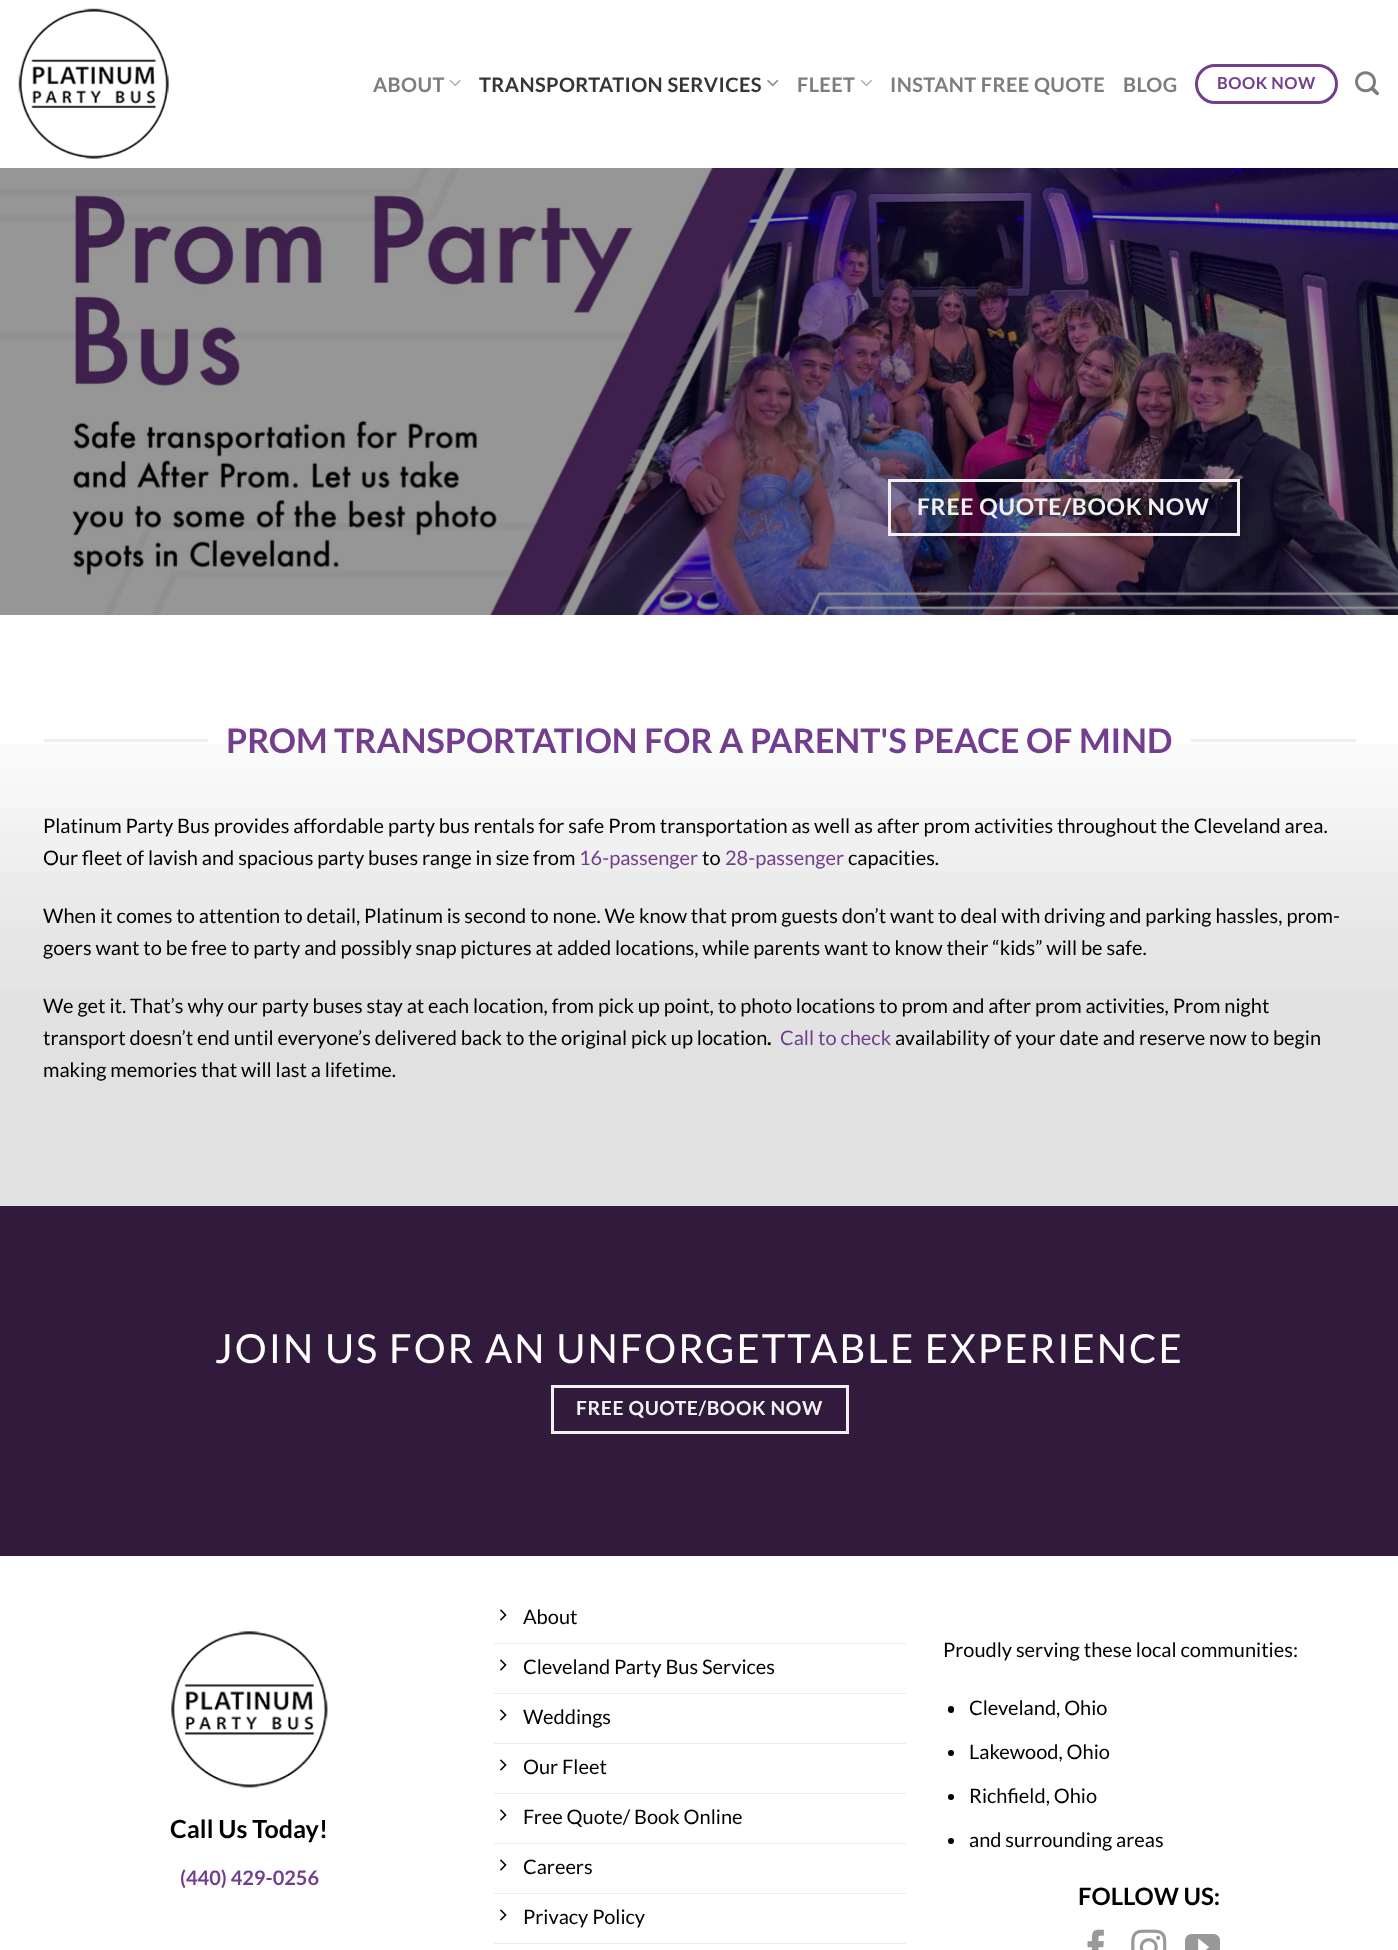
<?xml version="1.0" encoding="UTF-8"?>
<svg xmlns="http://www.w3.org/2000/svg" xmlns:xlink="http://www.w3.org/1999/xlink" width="1398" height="1950">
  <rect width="100%" height="100%" fill="#ffffff" />
  <image x="18" y="8" width="151" height="151" xlink:href="image1.png" />
  <image x="449" y="79" width="12" height="8" xlink:href="image2.png" />
  <image x="767" y="79" width="12" height="8" xlink:href="image3.png" />
  <image x="861" y="79" width="11" height="8" xlink:href="image4.png" />
  <rect x="1196.5" y="65.5" width="140" height="37" rx="18.5" fill="none" stroke="#733e8d" stroke-width="3" />
  <image x="1355" y="71" width="24" height="25" xlink:href="image5.png" />
  <image x="0" y="168" width="1398" height="447" xlink:href="image6.png" />
  <rect x="889.5" y="480.5" width="349" height="54" fill="none" stroke="#f1f1f1" stroke-width="3" />
  <rect x="44" y="739" width="164" height="3" fill="#f1ecf4" />
  <rect x="1191" y="739" width="165" height="3" fill="#f1ecf4" />
  <image x="0" y="744" width="1398" height="462" xlink:href="image7.png" />
  <rect y="1206" width="1398" height="350" fill="#311a3b" />
  <rect x="552.5" y="1386.5" width="295" height="46" fill="none" stroke="#f1f1f1" stroke-width="3" />
  <image x="171" y="1631" width="157" height="157" xlink:href="image8.png" />
  <rect x="494" y="1643" width="412" height="1" fill="#ececec" />
  <image x="500" y="1609" width="7" height="12" xlink:href="image9.png" />
  <rect x="494" y="1693" width="412" height="1" fill="#ececec" />
  <image x="500" y="1659" width="7" height="12" xlink:href="image9.png" />
  <rect x="494" y="1743" width="412" height="1" fill="#ececec" />
  <image x="500" y="1709" width="7" height="12" xlink:href="image9.png" />
  <rect x="494" y="1793" width="412" height="1" fill="#ececec" />
  <image x="500" y="1759" width="7" height="12" xlink:href="image9.png" />
  <rect x="494" y="1843" width="412" height="1" fill="#ececec" />
  <image x="500" y="1809" width="7" height="12" xlink:href="image9.png" />
  <rect x="494" y="1893" width="412" height="1" fill="#ececec" />
  <image x="500" y="1859" width="7" height="12" xlink:href="image9.png" />
  <rect x="494" y="1943" width="412" height="1" fill="#ececec" />
  <image x="500" y="1909" width="7" height="12" xlink:href="image9.png" />
  <rect x="948" y="1706" width="6" height="7" rx="3" fill="#000000" />
  <circle cx="951" cy="1753" r="3" fill="#000000" />
  <circle cx="951" cy="1797" r="3" fill="#000000" />
  <circle cx="951" cy="1841" r="3" fill="#000000" />
  <image x="1087" y="1929" width="17" height="21" xlink:href="image10.png" />
  <image x="1131" y="1929" width="36" height="21" xlink:href="image11.png" />
  <image x="1185" y="1934" width="35" height="16" xlink:href="image12.png" />
  <text x="373" y="92" style="font-family: Lato; font-size: 20px; font-weight: bold; letter-spacing: 0.4px; fill: #7d7d7d">ABOUT</text>
  <text x="479" y="92" style="font-family: Lato; font-size: 20px; font-weight: bold; letter-spacing: 0.4px; fill: #353535">TRANSPORTATION SERVICES</text>
  <text x="797" y="92" style="font-family: Lato; font-size: 20px; font-weight: bold; letter-spacing: 0.4px; fill: #7d7d7d">FLEET</text>
  <text x="890" y="92" style="font-family: Lato; font-size: 20px; font-weight: bold; letter-spacing: 0.4px; fill: #7d7d7d">INSTANT FREE QUOTE</text>
  <text x="1123" y="92" style="font-family: Lato; font-size: 20px; font-weight: bold; letter-spacing: 0.4px; fill: #7d7d7d">BLOG</text>
  <text x="1217" y="89" style="font-family: Lato; font-size: 16.5px; font-weight: bold; letter-spacing: 0.5px; fill: #733e8d">BOOK NOW</text>
  <text x="917" y="515" style="font-family: Lato; font-size: 23px; font-weight: bold; letter-spacing: 0.7px; fill: #f1f1f1">FREE QUOTE/BOOK NOW</text>
  <text x="226" y="753" style="font-family: Lato; font-size: 34px; font-weight: bold; fill: #733e8d">PROM TRANSPORTATION FOR A PARENT'S PEACE OF MIND</text>
  <text x="43" y="833" style="font-family: Lato; font-size: 20px; fill: #000000">Platinum Party Bus provides affordable party bus rentals for safe Prom transportation as well as after prom activities throughout the Cleveland area.</text>
  <text x="43" y="865" style="font-family: Lato; font-size: 20px; fill: #000000">Our fleet of lavish and spacious party buses range in size from</text>
  <text x="579" y="865" style="font-family: Lato; font-size: 20px; fill: #733e8d">16-passenger</text>
  <text x="702" y="865" style="font-family: Lato; font-size: 20px; fill: #000000">to</text>
  <text x="725" y="865" style="font-family: Lato; font-size: 20px; fill: #733e8d">28-passenger</text>
  <text x="848" y="865" style="font-family: Lato; font-size: 20px; fill: #000000">capacities.</text>
  <text x="43" y="923" style="font-family: Lato; font-size: 20px; fill: #000000">When it comes to attention to detail, Platinum is second to none. We know that prom guests don’t want to deal with driving and parking hassles, prom-</text>
  <text x="43" y="955" style="font-family: Lato; font-size: 20px; fill: #000000">goers want to be free to party and possibly snap pictures at added locations, while parents want to know their “kids” will be safe.</text>
  <text x="43" y="1013" style="font-family: Lato; font-size: 20px; fill: #000000">We get it. That’s why our party buses stay at each location, from pick up point, to photo locations to prom and after prom activities, Prom night</text>
  <text x="43" y="1045" style="font-family: Lato; font-size: 20px; fill: #000000">transport doesn’t end until everyone’s delivered back to the original pick up location</text>
  <text x="767" y="1045" style="font-family: Lato; font-size: 20px; font-weight: bold; fill: #000000">.</text>
  <text x="780" y="1045" style="font-family: Lato; font-size: 20px; fill: #733e8d">Call to check</text>
  <text x="895" y="1045" style="font-family: Lato; font-size: 20px; fill: #000000">availability of your date and reserve now to begin</text>
  <text x="43" y="1077" style="font-family: Lato; font-size: 20px; fill: #000000">making memories that will last a lifetime.</text>
  <text x="215" y="1363" style="font-family: Lato; font-size: 40px; letter-spacing: 2px; fill: #ffffff">JOIN US FOR AN UNFORGETTABLE EXPERIENCE</text>
  <text x="576" y="1415" style="font-family: Lato; font-size: 19.4px; font-weight: bold; letter-spacing: 0.6px; fill: #f1f1f1">FREE QUOTE/BOOK NOW</text>
  <text x="170" y="1838" style="font-family: Lato; font-size: 25px; font-weight: bold; fill: #000000">Call Us Today!</text>
  <text x="180" y="1885" style="font-family: Lato; font-size: 20px; font-weight: bold; fill: #733e8d">(440) 429-0256</text>
  <text x="523" y="1624" style="font-family: Lato; font-size: 20px; fill: #000000">About</text>
  <text x="523" y="1674" style="font-family: Lato; font-size: 20px; fill: #000000">Cleveland Party Bus Services</text>
  <text x="523" y="1724" style="font-family: Lato; font-size: 20px; fill: #000000">Weddings</text>
  <text x="523" y="1774" style="font-family: Lato; font-size: 20px; fill: #000000">Our Fleet</text>
  <text x="523" y="1824" style="font-family: Lato; font-size: 20px; fill: #000000">Free Quote/ Book Online</text>
  <text x="523" y="1874" style="font-family: Lato; font-size: 20px; fill: #000000">Careers</text>
  <text x="523" y="1924" style="font-family: Lato; font-size: 20px; fill: #000000">Privacy Policy</text>
  <text x="943" y="1657" style="font-family: Lato; font-size: 20px; fill: #000000">Proudly serving these local communities:</text>
  <text x="969" y="1715" style="font-family: Lato; font-size: 20px; fill: #000000">Cleveland, Ohio</text>
  <text x="969" y="1759" style="font-family: Lato; font-size: 20px; fill: #000000">Lakewood, Ohio</text>
  <text x="969" y="1803" style="font-family: Lato; font-size: 20px; fill: #000000">Richfield, Ohio</text>
  <text x="969" y="1847" style="font-family: Lato; font-size: 20px; fill: #000000">and surrounding areas</text>
  <text x="1078" y="1905" style="font-family: Lato; font-size: 24px; font-weight: bold; fill: #000000">FOLLOW US:</text>
</svg>
